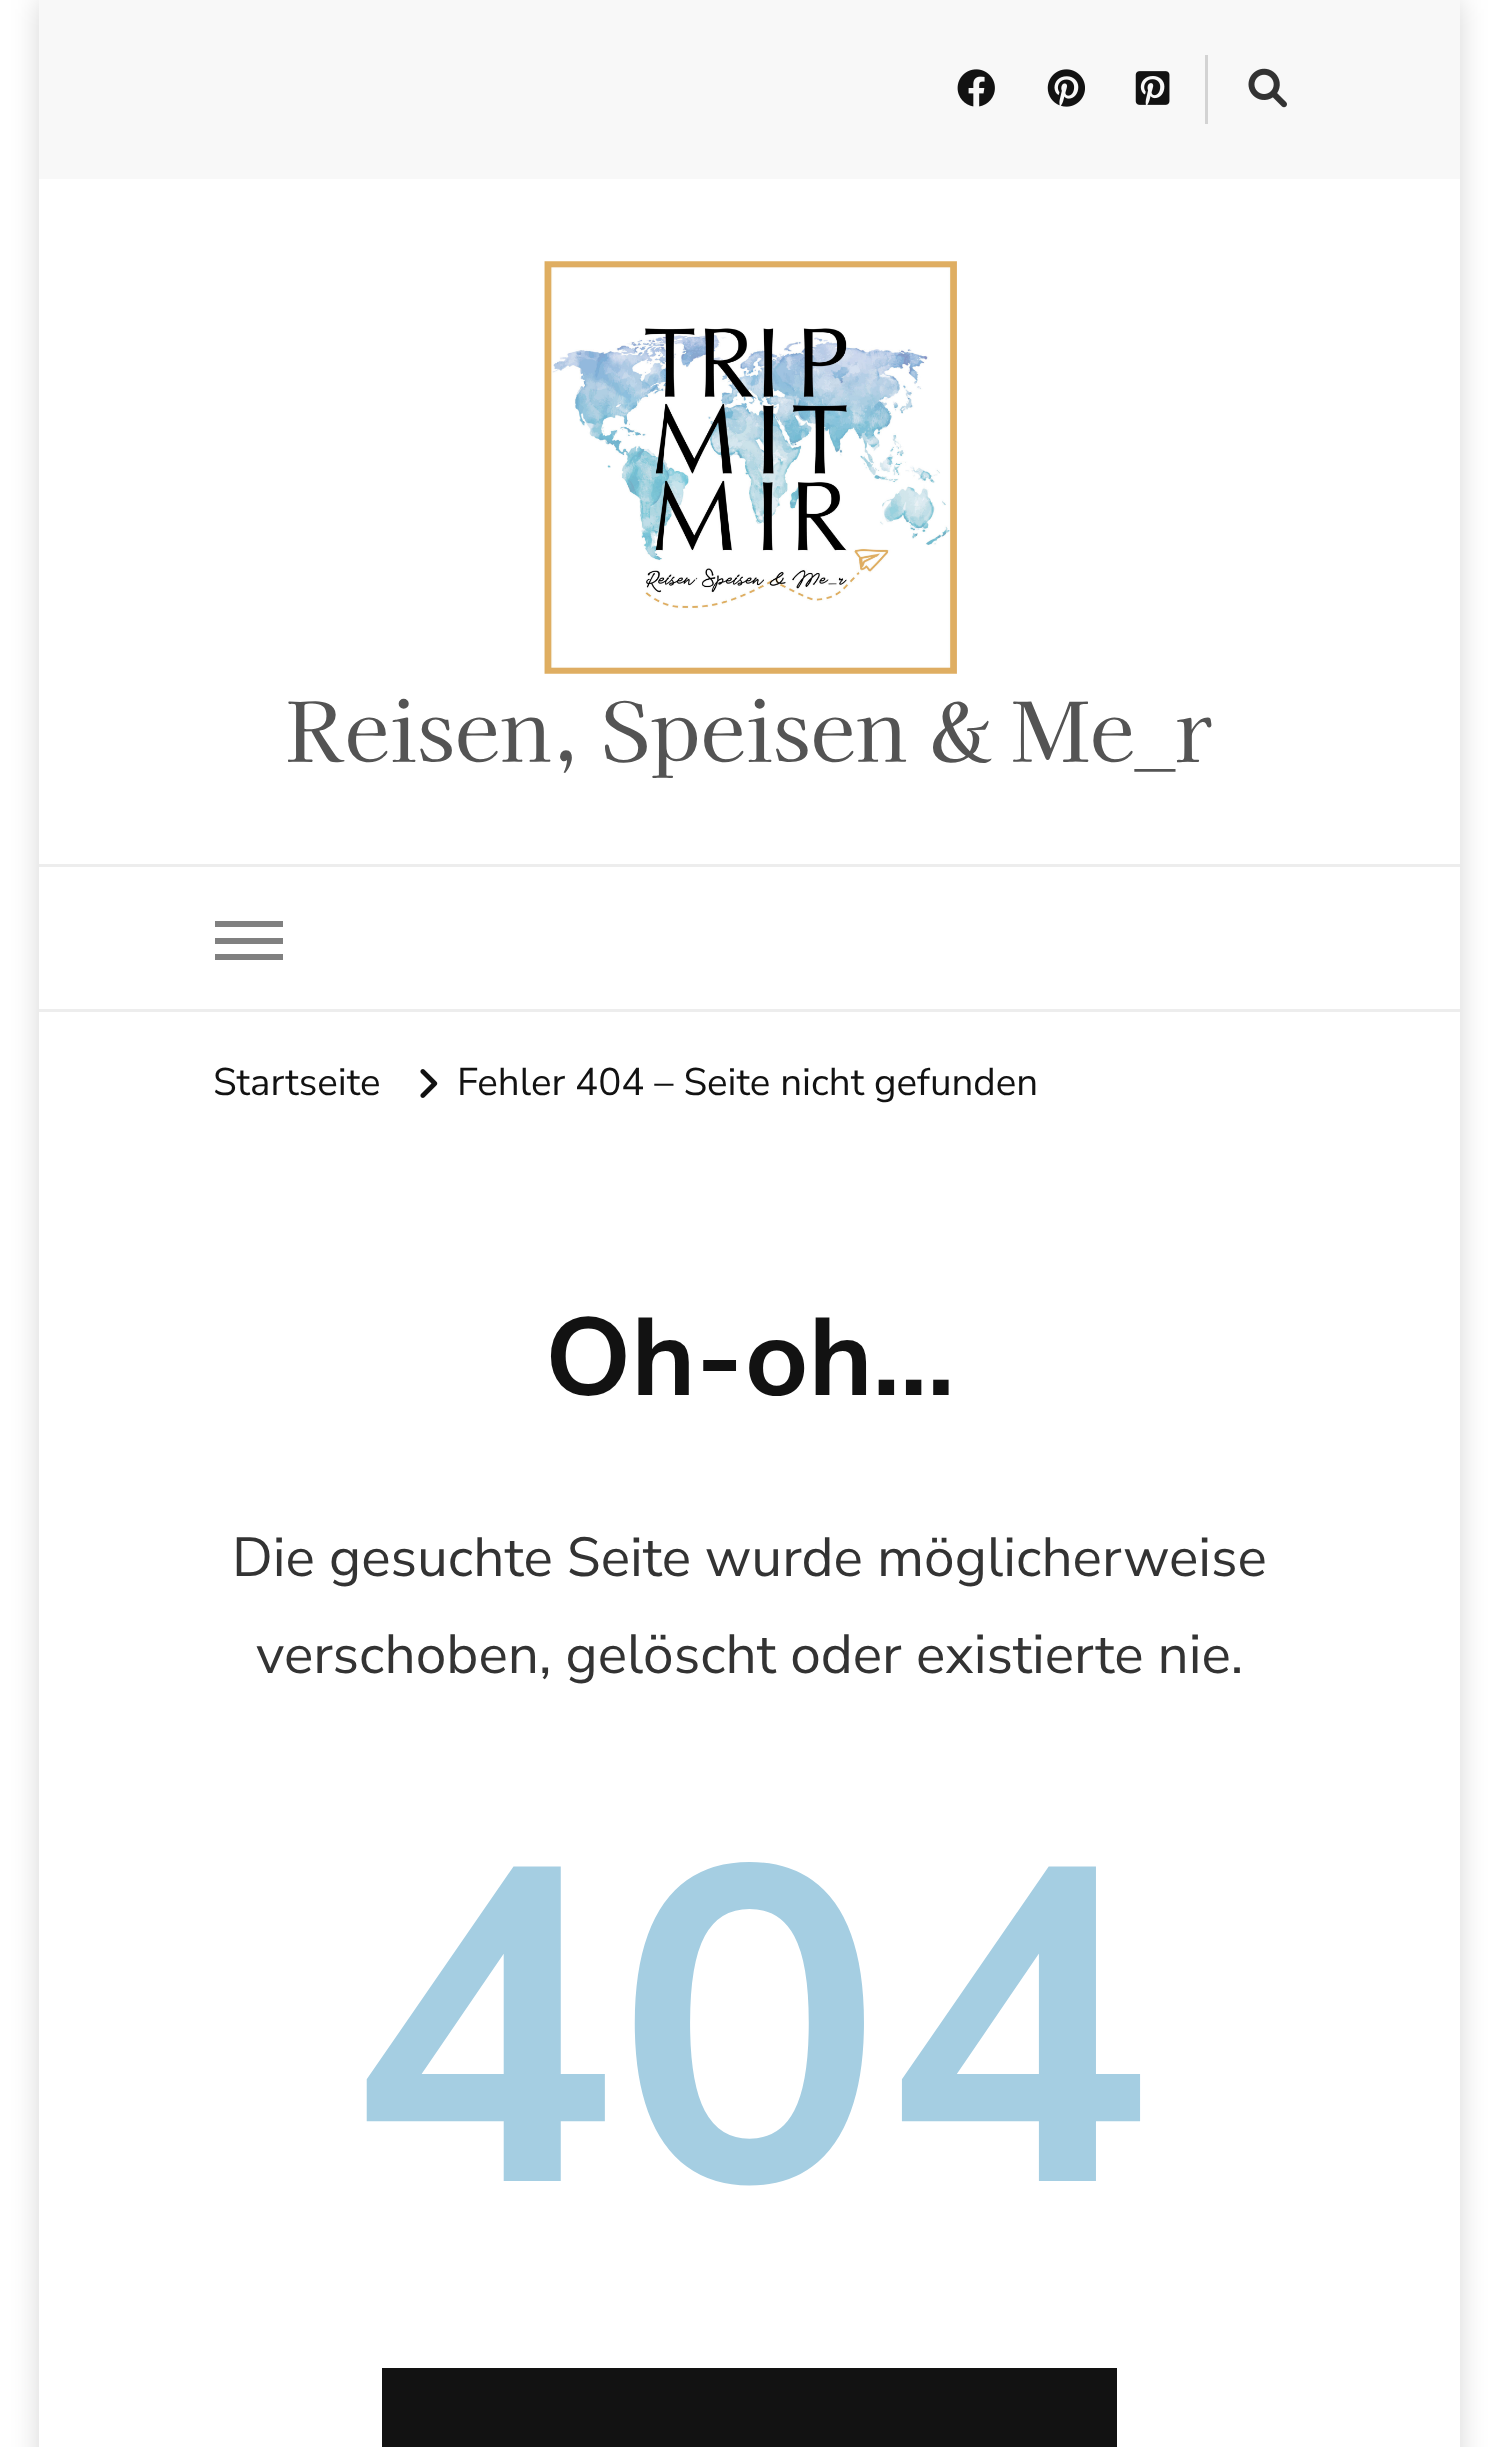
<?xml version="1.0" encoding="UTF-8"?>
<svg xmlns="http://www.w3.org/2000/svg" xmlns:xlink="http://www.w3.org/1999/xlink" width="1497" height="2447">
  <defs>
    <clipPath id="clip1"><path d="M 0 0 h 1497 v 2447 h -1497 z m 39 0 h 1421 v 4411 h -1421 z" clip-rule="evenodd" /></clipPath>
  </defs>
  <rect width="100%" height="100%" fill="#ffffff" />
  <g clip-path="url(#clip1)">
    <rect x="39" width="1421" height="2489" fill="#000000" fill-opacity="0.16" filter="blur(14px)" />
  </g>
  <rect x="39" width="1421" height="179" fill="#f8f8f8" />
  <image x="957" y="69" width="38" height="38" xlink:href="image1.png" />
  <image x="1047" y="69" width="38" height="38" xlink:href="image2.png" />
  <image x="1135" y="71" width="35" height="34" xlink:href="image3.png" />
  <rect x="1205" y="55" width="3" height="69" fill="#d3d3d3" />
  <image x="1248" y="68" width="39" height="40" xlink:href="image4.png" />
  <image x="544" y="261" width="413" height="413" xlink:href="image5.png" />
  <rect x="39" y="864" width="1421" height="3" fill="#ededed" />
  <rect x="39" y="1009" width="1421" height="3" fill="#ededed" />
  <rect x="215" y="921" width="68" height="6" fill="#808080" />
  <rect x="215" y="938" width="68" height="6" fill="#808080" />
  <rect x="215" y="954" width="68" height="6" fill="#808080" />
  <image x="420" y="1069" width="18" height="29" xlink:href="image6.png" />
  <rect x="382" y="2368" width="735" height="79" fill="#121212" />
  <text x="286" y="762" style="font-family: Kaisei Opti; font-size: 82.5px; fill: #545454">Reisen, Speisen &amp; Me_r</text>
  <text x="213" y="1095" style="font-family: Nunito Sans; font-size: 38.5px; fill: #121212">Startseite</text>
  <text x="457" y="1095" style="font-family: Nunito Sans; font-size: 38.5px; fill: #121212">Fehler 404 – Seite nicht gefunden</text>
  <text x="545" y="1395" style="font-family: Nunito Sans; font-size: 110px; font-weight: bold; fill: #121212">Oh-oh...</text>
  <text x="232" y="1576" style="font-family: Nunito Sans; font-size: 55px; fill: #333333">Die gesuchte Seite wurde möglicherweise</text>
  <text x="256" y="1673" style="font-family: Nunito Sans; font-size: 55px; fill: #333333">verschoben, gelöscht oder existierte nie.</text>
  <text x="348" y="2181" style="font-family: Nunito Sans; font-size: 446px; font-weight: bold; fill: #a5cee2">404</text>
</svg>
